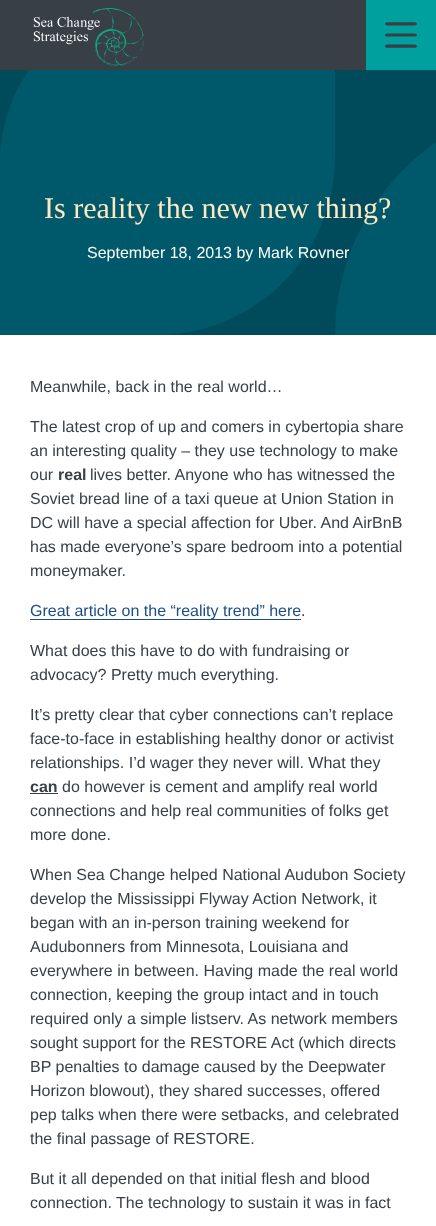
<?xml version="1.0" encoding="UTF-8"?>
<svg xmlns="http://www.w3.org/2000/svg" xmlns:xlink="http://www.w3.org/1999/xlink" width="436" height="1226">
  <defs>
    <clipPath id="clip1"><rect width="436" height="335" /></clipPath>
  </defs>
  <rect width="100%" height="100%" fill="#ffffff" />
  <rect y="70" width="436" height="265" fill="#004b5b" />
  <path d="M 335 0 v 157 c 0 98 -80 178 -178 178 h -157 v -173 c 0 -89 73 -162 162 -162 z" fill="#00586b" fill-rule="evenodd" />
  <rect width="366" height="70" fill="#383f45" />
  <image x="33" y="8" width="111" height="58" xlink:href="image1.png" />
  <rect x="366" width="70" height="70" fill="#00a09f" />
  <image x="385" y="22" width="32" height="26" xlink:href="image2.png" />
  <g clip-path="url(#clip1)">
    <circle cx="570.5" cy="335.5" r="235.5" fill="#00586b" />
  </g>
  <rect x="30" y="619" width="271" height="1" fill="#1c4d84" />
  <rect x="30" y="793" width="28" height="1" fill="#383f45" />
  <text x="44" y="218" style="font-family: Liberation Serif; font-size: 30px; fill: #ffe9c4">Is reality the new new thing?</text>
  <text x="87" y="258" style="font-family: Liberation Sans; font-size: 16px; fill: #ffffff">September 18, 2013 by Mark Rovner</text>
  <text x="30" y="392" style="font-family: Liberation Sans; font-size: 16px; fill: #383f45">Meanwhile, back in the real world…</text>
  <text x="30" y="432" style="font-family: Liberation Sans; font-size: 16px; fill: #383f45">The latest crop of up and comers in cybertopia share</text>
  <text x="30" y="456" style="font-family: Liberation Sans; font-size: 16px; fill: #383f45">an interesting quality – they use technology to make</text>
  <text x="30" y="480" style="font-family: Liberation Sans; font-size: 16px; fill: #383f45">our</text>
  <text x="58" y="480" style="font-family: Liberation Sans; font-size: 16px; font-weight: bold; fill: #383f45">real</text>
  <text x="90" y="480" style="font-family: Liberation Sans; font-size: 16px; fill: #383f45">lives better. Anyone who has witnessed the</text>
  <text x="30" y="504" style="font-family: Liberation Sans; font-size: 16px; fill: #383f45">Soviet bread line of a taxi queue at Union Station in</text>
  <text x="30" y="528" style="font-family: Liberation Sans; font-size: 16px; fill: #383f45">DC will have a special affection for Uber. And AirBnB</text>
  <text x="30" y="552" style="font-family: Liberation Sans; font-size: 16px; fill: #383f45">has made everyone’s spare bedroom into a potential</text>
  <text x="30" y="576" style="font-family: Liberation Sans; font-size: 16px; fill: #383f45">moneymaker.</text>
  <text x="30" y="616" style="font-family: Liberation Sans; font-size: 16px; fill: #1c4d84">Great article on the “reality trend” here</text>
  <text x="301" y="616" style="font-family: Liberation Sans; font-size: 16px; fill: #383f45">.</text>
  <text x="30" y="656" style="font-family: Liberation Sans; font-size: 16px; fill: #383f45">What does this have to do with fundraising or</text>
  <text x="30" y="680" style="font-family: Liberation Sans; font-size: 16px; fill: #383f45">advocacy? Pretty much everything.</text>
  <text x="30" y="720" style="font-family: Liberation Sans; font-size: 16px; fill: #383f45">It’s pretty clear that cyber connections can’t replace</text>
  <text x="30" y="744" style="font-family: Liberation Sans; font-size: 16px; fill: #383f45">face-to-face in establishing healthy donor or activist</text>
  <text x="30" y="768" style="font-family: Liberation Sans; font-size: 16px; fill: #383f45">relationships. I’d wager they never will. What they</text>
  <text x="30" y="792" style="font-family: Liberation Sans; font-size: 16px; font-weight: bold; fill: #383f45">can</text>
  <text x="62" y="792" style="font-family: Liberation Sans; font-size: 16px; fill: #383f45">do however is cement and amplify real world</text>
  <text x="30" y="816" style="font-family: Liberation Sans; font-size: 16px; fill: #383f45">connections and help real communities of folks get</text>
  <text x="30" y="840" style="font-family: Liberation Sans; font-size: 16px; fill: #383f45">more done.</text>
  <text x="30" y="880" style="font-family: Liberation Sans; font-size: 16px; fill: #383f45">When Sea Change helped National Audubon Society</text>
  <text x="30" y="904" style="font-family: Liberation Sans; font-size: 16px; fill: #383f45">develop the Mississippi Flyway Action Network, it</text>
  <text x="30" y="928" style="font-family: Liberation Sans; font-size: 16px; fill: #383f45">began with an in-person training weekend for</text>
  <text x="30" y="952" style="font-family: Liberation Sans; font-size: 16px; fill: #383f45">Audubonners from Minnesota, Louisiana and</text>
  <text x="30" y="976" style="font-family: Liberation Sans; font-size: 16px; fill: #383f45">everywhere in between. Having made the real world</text>
  <text x="30" y="1000" style="font-family: Liberation Sans; font-size: 16px; fill: #383f45">connection, keeping the group intact and in touch</text>
  <text x="30" y="1024" style="font-family: Liberation Sans; font-size: 16px; fill: #383f45">required only a simple listserv. As network members</text>
  <text x="30" y="1048" style="font-family: Liberation Sans; font-size: 16px; fill: #383f45">sought support for the RESTORE Act (which directs</text>
  <text x="30" y="1072" style="font-family: Liberation Sans; font-size: 16px; fill: #383f45">BP penalties to damage caused by the Deepwater</text>
  <text x="30" y="1096" style="font-family: Liberation Sans; font-size: 16px; fill: #383f45">Horizon blowout), they shared successes, offered</text>
  <text x="30" y="1120" style="font-family: Liberation Sans; font-size: 16px; fill: #383f45">pep talks when there were setbacks, and celebrated</text>
  <text x="30" y="1144" style="font-family: Liberation Sans; font-size: 16px; fill: #383f45">the final passage of RESTORE.</text>
  <text x="30" y="1184" style="font-family: Liberation Sans; font-size: 16px; fill: #383f45">But it all depended on that initial flesh and blood</text>
  <text x="30" y="1208" style="font-family: Liberation Sans; font-size: 16px; fill: #383f45">connection. The technology to sustain it was in fact</text>
</svg>
